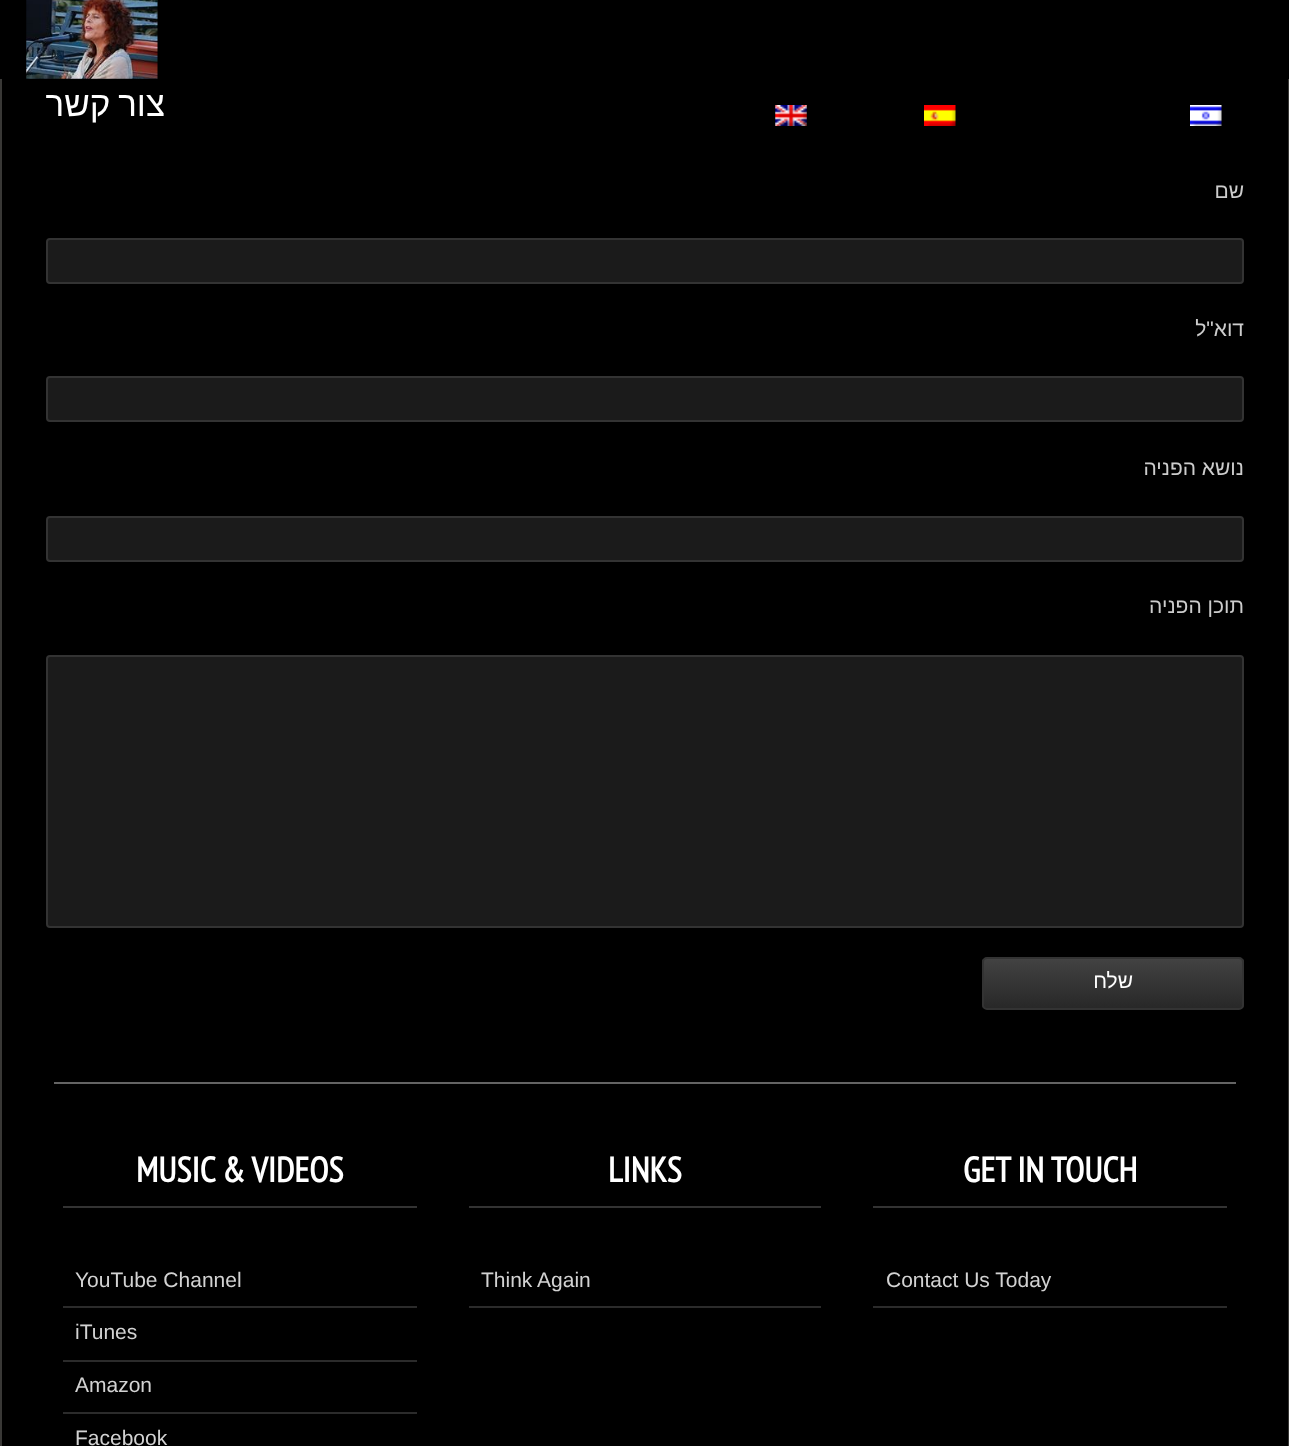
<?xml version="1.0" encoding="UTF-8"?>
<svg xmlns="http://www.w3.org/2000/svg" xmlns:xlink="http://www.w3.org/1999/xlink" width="1289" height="1446">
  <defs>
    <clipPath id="clip1"><rect x="982" y="957" width="262" height="53" rx="5" /></clipPath>
    <linearGradient id="g1" gradientUnits="userSpaceOnUse" x1="984" y1="959" x2="984" y2="1008"><stop offset="0" stop-color="#424242" /><stop offset="1" stop-color="#282828" /></linearGradient>
  </defs>
  <rect width="100%" height="100%" fill="#000000" />
  <image x="26" y="0" width="132" height="79" xlink:href="image1.png" />
  <rect x="1288" y="79" width="1" height="1367" fill="#393836" />
  <rect y="79" width="2" height="1367" fill="#393836" />
  <image x="775" y="105" width="32" height="21" xlink:href="image2.png" />
  <image x="924" y="105" width="32" height="21" xlink:href="image3.png" />
  <image x="1190" y="105" width="32" height="21" xlink:href="image4.png" />
  <rect x="47" y="239" width="1196" height="44" rx="3" fill="#1b1b1b" stroke="#333333" stroke-width="2" />
  <rect x="47" y="377" width="1196" height="44" rx="3" fill="#1b1b1b" stroke="#333333" stroke-width="2" />
  <rect x="47" y="517" width="1196" height="44" rx="3" fill="#1b1b1b" stroke="#333333" stroke-width="2" />
  <rect x="47" y="656" width="1196" height="271" rx="3" fill="#1b1b1b" stroke="#333333" stroke-width="2" />
  <g clip-path="url(#clip1)">
    <rect x="982" y="959" width="262" height="49" fill="url(#g1)" />
  </g>
  <rect x="983" y="958" width="260" height="51" rx="4" fill="none" stroke="#333333" stroke-width="2" />
  <rect x="54" y="1082" width="1182" height="2" fill="#646464" />
  <rect x="63" y="1206" width="354" height="2" fill="#333333" />
  <rect x="63" y="1306" width="354" height="2" fill="#2b2b2b" />
  <rect x="63" y="1360" width="354" height="2" fill="#2b2b2b" />
  <rect x="63" y="1412" width="354" height="2" fill="#2b2b2b" />
  <rect x="469" y="1206" width="352" height="2" fill="#333333" />
  <rect x="469" y="1306" width="352" height="2" fill="#2b2b2b" />
  <rect x="873" y="1206" width="354" height="2" fill="#333333" />
  <rect x="873" y="1306" width="354" height="2" fill="#2b2b2b" />
  <text x="165" y="116" word-spacing="-2" style="font-family: Liberation Sans; font-size: 35px; direction: rtl; fill: #ffffff">צור קשר</text>
  <text x="1244" y="198" style="font-family: Liberation Sans; font-size: 21px; direction: rtl; fill: #cccccc">שם</text>
  <text x="1244" y="336" style="font-family: Liberation Sans; font-size: 21px; direction: rtl; fill: #cccccc">דוא"ל</text>
  <text x="1244" y="475" style="font-family: Liberation Sans; font-size: 21px; direction: rtl; fill: #cccccc">נושא הפניה</text>
  <text x="1244" y="613" style="font-family: Liberation Sans; font-size: 21px; direction: rtl; fill: #cccccc">תוכן הפניה</text>
  <text x="1133" y="988" style="font-family: Liberation Sans; font-size: 21px; direction: rtl; fill: #ffffff">שלח</text>
  <text x="136" y="1182" style="font-family: PT Sans Narrow; font-size: 35px; font-weight: bold; fill: #ffffff">MUSIC &amp; VIDEOS</text>
  <text x="75" y="1287" style="font-family: Liberation Sans; font-size: 21px; fill: #d2d2d2">YouTube Channel</text>
  <text x="75" y="1339" style="font-family: Liberation Sans; font-size: 21px; fill: #d2d2d2">iTunes</text>
  <text x="75" y="1392" style="font-family: Liberation Sans; font-size: 21px; fill: #d2d2d2">Amazon</text>
  <text x="75" y="1445" style="font-family: Liberation Sans; font-size: 21px; fill: #d2d2d2">Facebook</text>
  <text x="608" y="1182" style="font-family: PT Sans Narrow; font-size: 35px; font-weight: bold; fill: #ffffff">LINKS</text>
  <text x="481" y="1287" style="font-family: Liberation Sans; font-size: 21px; fill: #d2d2d2">Think Again</text>
  <text x="963" y="1182" style="font-family: PT Sans Narrow; font-size: 35px; font-weight: bold; fill: #ffffff">GET IN TOUCH</text>
  <text x="886" y="1287" style="font-family: Liberation Sans; font-size: 21px; fill: #d2d2d2">Contact Us Today</text>
</svg>
